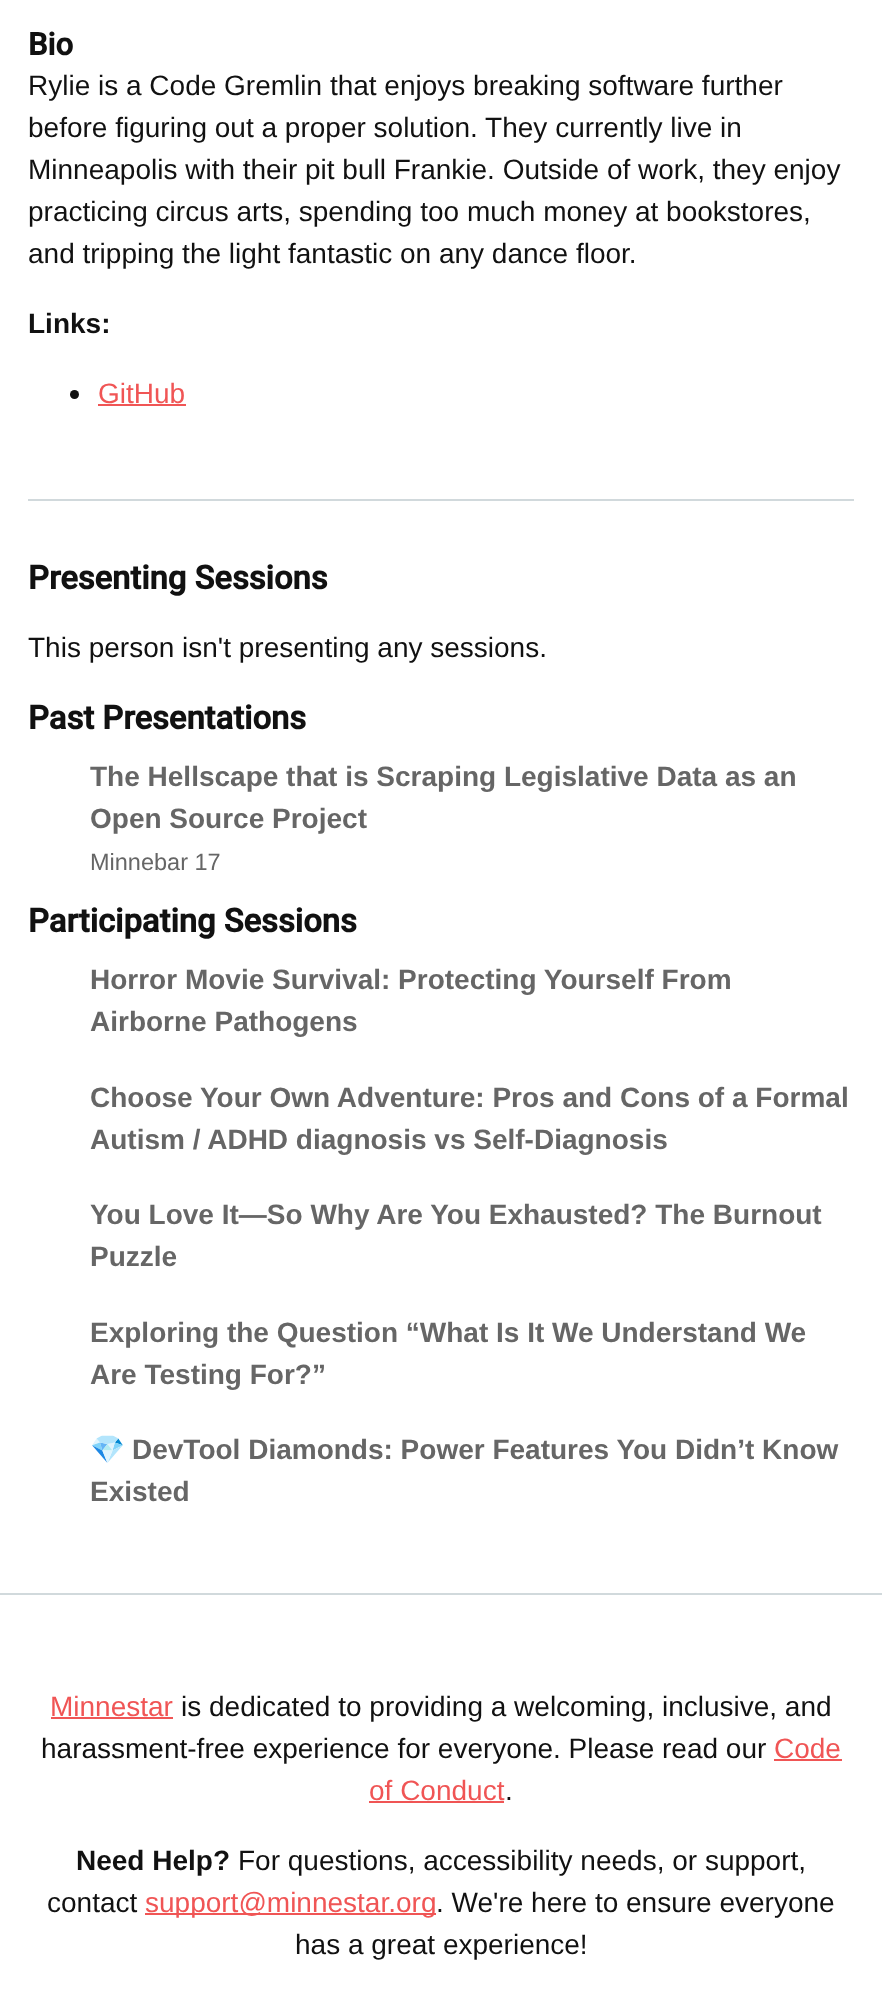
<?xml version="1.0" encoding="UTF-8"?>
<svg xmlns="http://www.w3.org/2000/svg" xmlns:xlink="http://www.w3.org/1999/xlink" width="882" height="1991">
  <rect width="100%" height="100%" fill="#ffffff" />
  <circle cx="74.5" cy="394.5" r="4.5" fill="#111111" />
  <rect x="98" y="404" width="88" height="2" fill="#f05555" />
  <rect x="28" y="499" width="826" height="2" fill="#d1d9dc" />
  <rect y="1593" width="882" height="2" fill="#d1d9dc" />
  <rect x="51" y="1717" width="122" height="2" fill="#f05555" />
  <rect x="774" y="1759" width="68" height="2" fill="#f05555" />
  <rect x="369" y="1801" width="135" height="2" fill="#f05555" />
  <rect x="145" y="1913" width="291" height="2" fill="#f05555" />
  <text x="28" y="55" style="font-family: Roboto; font-size: 31px; font-weight: bold; fill: #111111">Bio</text>
  <text x="28" y="95" style="font-family: Liberation Sans; font-size: 28px; fill: #111111">Rylie is a Code Gremlin that enjoys breaking software further</text>
  <text x="28" y="137" style="font-family: Liberation Sans; font-size: 28px; fill: #111111">before figuring out a proper solution. They currently live in</text>
  <text x="28" y="179" style="font-family: Liberation Sans; font-size: 28px; fill: #111111">Minneapolis with their pit bull Frankie. Outside of work, they enjoy</text>
  <text x="28" y="221" style="font-family: Liberation Sans; font-size: 28px; fill: #111111">practicing circus arts, spending too much money at bookstores,</text>
  <text x="28" y="263" style="font-family: Liberation Sans; font-size: 28px; fill: #111111">and tripping the light fantastic on any dance floor.</text>
  <text x="28" y="333" style="font-family: Liberation Sans; font-size: 28px; font-weight: bold; fill: #111111">Links:</text>
  <text x="98" y="403" style="font-family: Liberation Sans; font-size: 28px; fill: #f05555">GitHub</text>
  <text x="28" y="589" style="font-family: Roboto; font-size: 32.75px; font-weight: bold; fill: #111111">Presenting Sessions</text>
  <text x="28" y="657" style="font-family: Liberation Sans; font-size: 28px; fill: #111111">This person isn't presenting any sessions.</text>
  <text x="28" y="729" style="font-family: Roboto; font-size: 32.75px; font-weight: bold; fill: #111111">Past Presentations</text>
  <text x="90" y="786" style="font-family: Liberation Sans; font-size: 28px; font-weight: bold; fill: #666666">The Hellscape that is Scraping Legislative Data as an</text>
  <text x="90" y="828" style="font-family: Liberation Sans; font-size: 28px; font-weight: bold; fill: #666666">Open Source Project</text>
  <text x="90" y="870" style="font-family: Liberation Sans; font-size: 23.5px; fill: #666666">Minnebar 17</text>
  <text x="28" y="932" style="font-family: Roboto; font-size: 32.75px; font-weight: bold; fill: #111111">Participating Sessions</text>
  <text x="90" y="989" style="font-family: Liberation Sans; font-size: 28px; font-weight: bold; fill: #666666">Horror Movie Survival: Protecting Yourself From</text>
  <text x="90" y="1031" style="font-family: Liberation Sans; font-size: 28px; font-weight: bold; fill: #666666">Airborne Pathogens</text>
  <text x="90" y="1107" style="font-family: Liberation Sans; font-size: 28px; font-weight: bold; fill: #666666">Choose Your Own Adventure: Pros and Cons of a Formal</text>
  <text x="90" y="1149" style="font-family: Liberation Sans; font-size: 28px; font-weight: bold; fill: #666666">Autism / ADHD diagnosis vs Self-Diagnosis</text>
  <text x="90" y="1224" style="font-family: Liberation Sans; font-size: 28px; font-weight: bold; fill: #666666">You Love It—So Why Are You Exhausted? The Burnout</text>
  <text x="90" y="1266" style="font-family: Liberation Sans; font-size: 28px; font-weight: bold; fill: #666666">Puzzle</text>
  <text x="90" y="1342" style="font-family: Liberation Sans; font-size: 28px; font-weight: bold; fill: #666666">Exploring the Question “What Is It We Understand We</text>
  <text x="90" y="1384" style="font-family: Liberation Sans; font-size: 28px; font-weight: bold; fill: #666666">Are Testing For?”</text>
  <text x="90" y="1459" style="font-family: Noto Color Emoji; font-size: 28px; font-weight: bold; fill: #666666">💎</text>
  <text x="132" y="1459" style="font-family: Liberation Sans; font-size: 28px; font-weight: bold; fill: #666666">DevTool Diamonds: Power Features You Didn’t Know</text>
  <text x="90" y="1501" style="font-family: Liberation Sans; font-size: 28px; font-weight: bold; fill: #666666">Existed</text>
  <text x="50" y="1716" style="font-family: Liberation Sans; font-size: 28px; fill: #f05555">Minnestar</text>
  <text x="181" y="1716" style="font-family: Liberation Sans; font-size: 28px; fill: #111111">is dedicated to providing a welcoming, inclusive, and</text>
  <text x="41" y="1758" style="font-family: Liberation Sans; font-size: 28px; fill: #111111">harassment-free experience for everyone. Please read our</text>
  <text x="774" y="1758" style="font-family: Liberation Sans; font-size: 28px; fill: #f05555">Code</text>
  <text x="369" y="1800" style="font-family: Liberation Sans; font-size: 28px; fill: #f05555">of Conduct</text>
  <text x="505" y="1800" style="font-family: Liberation Sans; font-size: 28px; fill: #111111">.</text>
  <text x="76" y="1870" style="font-family: Liberation Sans; font-size: 28px; font-weight: bold; fill: #111111">Need Help?</text>
  <text x="238" y="1870" style="font-family: Liberation Sans; font-size: 28px; fill: #111111">For questions, accessibility needs, or support,</text>
  <text x="47" y="1912" style="font-family: Liberation Sans; font-size: 28px; fill: #111111">contact</text>
  <text x="145" y="1912" style="font-family: Liberation Sans; font-size: 28px; fill: #f05555">support@minnestar.org</text>
  <text x="436" y="1912" style="font-family: Liberation Sans; font-size: 28px; fill: #111111">. We're here to ensure everyone</text>
  <text x="295" y="1954" style="font-family: Liberation Sans; font-size: 28px; fill: #111111">has a great experience!</text>
</svg>
